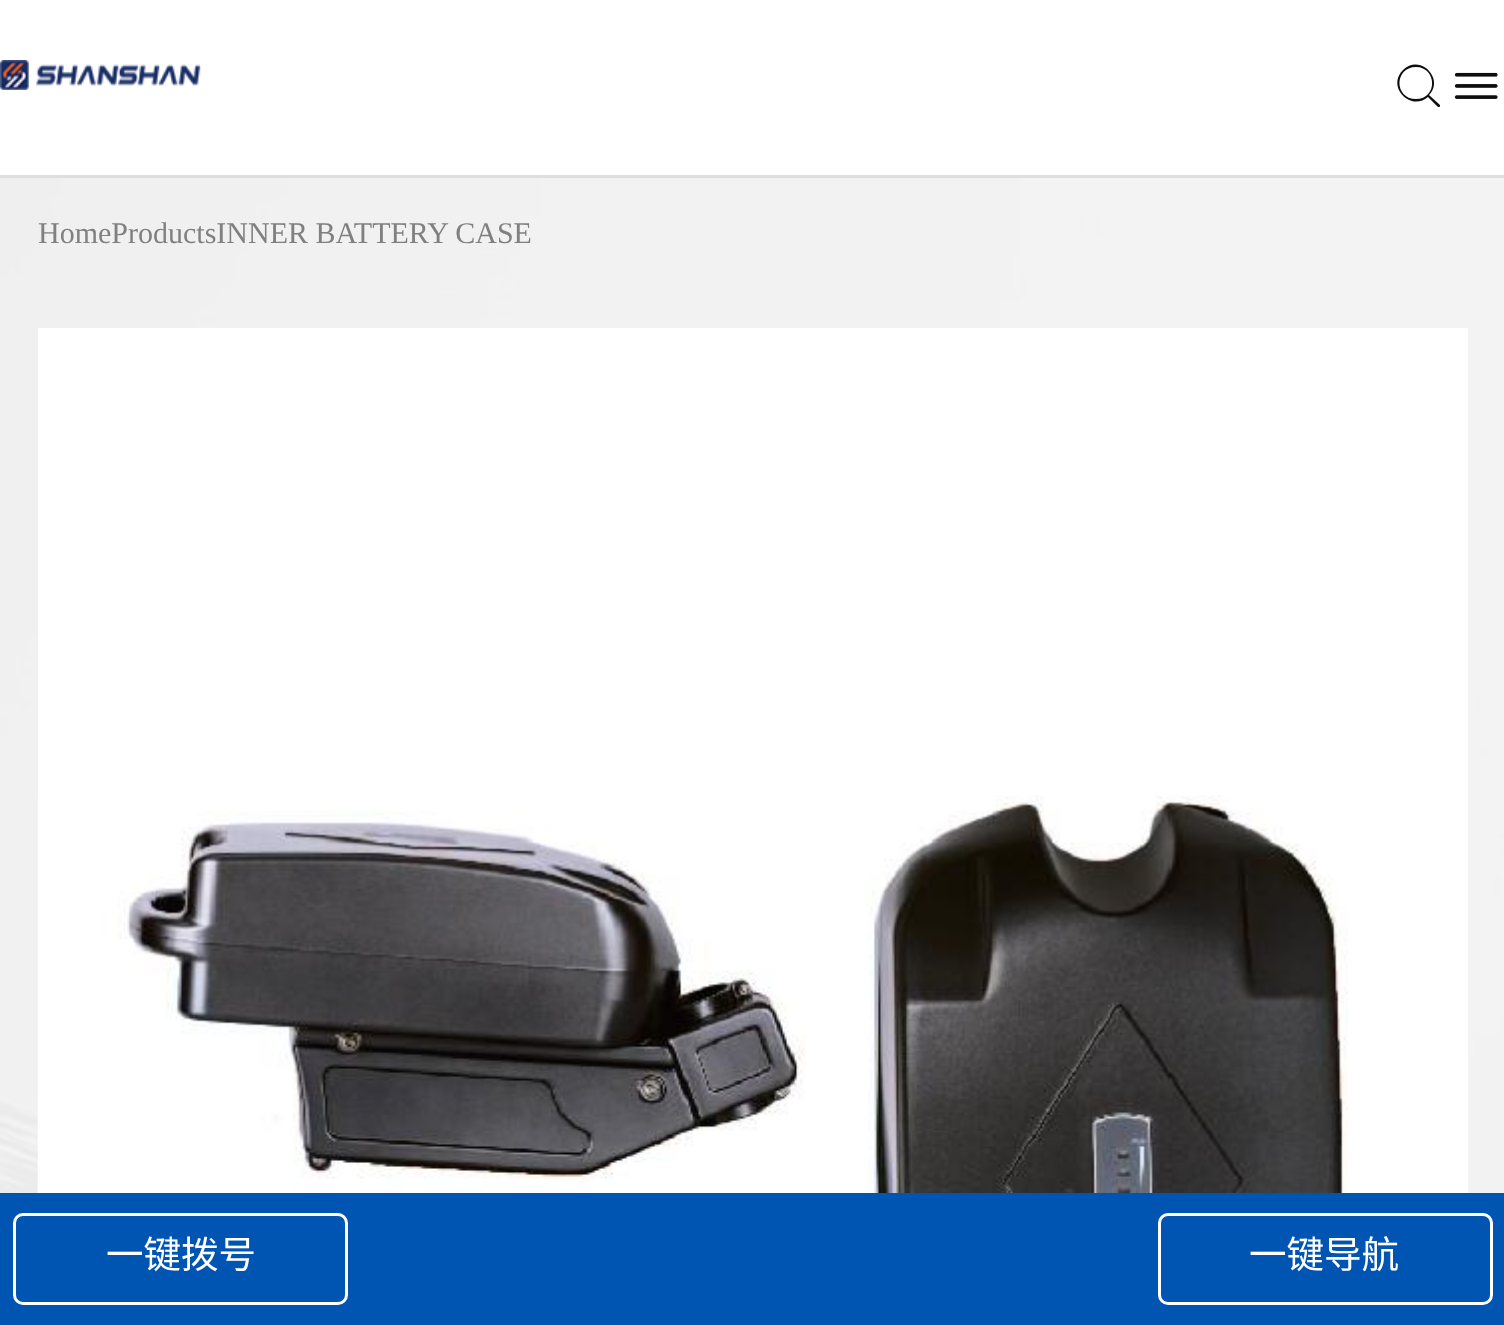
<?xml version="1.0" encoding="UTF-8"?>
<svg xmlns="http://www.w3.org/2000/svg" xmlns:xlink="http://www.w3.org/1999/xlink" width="1504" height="1325">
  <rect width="100%" height="100%" fill="#ffffff" />
  <image x="0" y="60" width="201" height="30" xlink:href="image1.png" />
  <path d="M 1440 105 l -11 -10 c 16 -16 -9 -42 -26 -25 c -17 17 8 42 25 27 l 10 10 c 1 0 2 0 2 -1 z m -24 -6 c -22 0 -22 -32 0 -32 c 21 0 22 32 0 32 z" fill="#0e0e0e" />
  <image x="1454" y="72" width="44" height="27" xlink:href="image2.png" />
  <image x="0" y="178" width="1504" height="1015" xlink:href="image3.png" />
  <rect y="175" width="1504" height="3" fill="#dedede" />
  <rect x="38" y="328" width="1430" height="865" fill="#ffffff" />
  <image x="37" y="795" width="1311" height="398" xlink:href="image4.png" />
  <rect y="1193" width="1504" height="132" fill="#0055b3" />
  <rect x="14.5" y="1214.5" width="332" height="89" rx="8.5" fill="none" stroke="#ffffff" stroke-width="3" />
  <rect x="1159.5" y="1214.5" width="332" height="89" rx="8.5" fill="none" stroke="#ffffff" stroke-width="3" />
  <text x="38" y="243" style="font-family: Liberation Serif; font-size: 30px; fill: #808080">HomeProductsINNER BATTERY CASE</text>
  <text x="106" y="1268" style="font-family: Noto Sans CJK SC; font-size: 37.5px; fill: #ffffff">一键拨号</text>
  <text x="1249" y="1268" style="font-family: Noto Sans CJK SC; font-size: 37.5px; fill: #ffffff">一键导航</text>
</svg>
